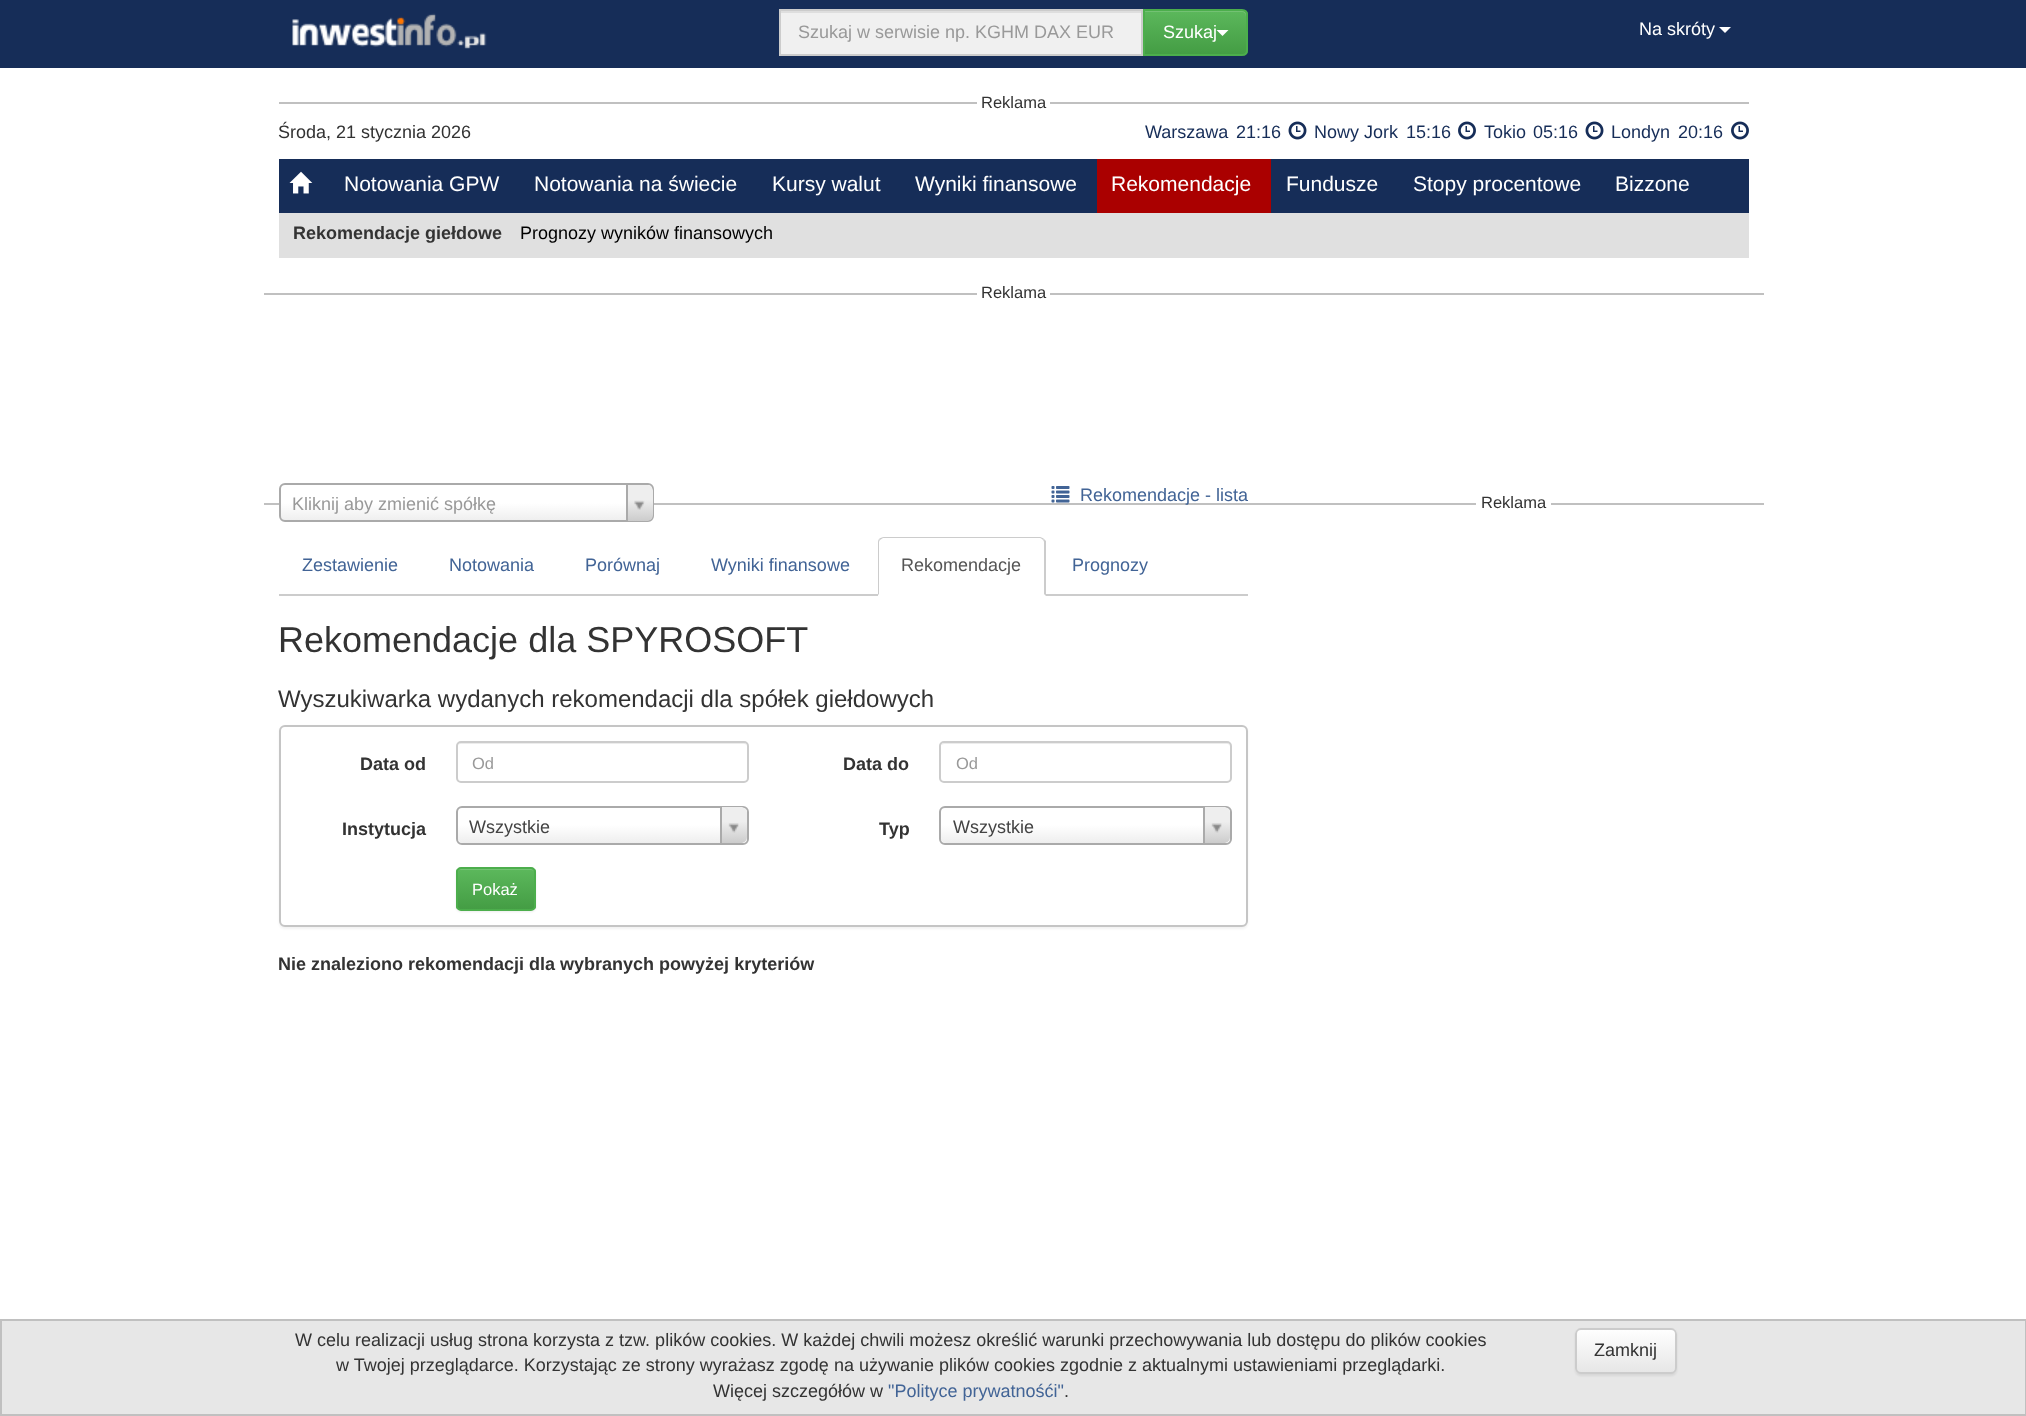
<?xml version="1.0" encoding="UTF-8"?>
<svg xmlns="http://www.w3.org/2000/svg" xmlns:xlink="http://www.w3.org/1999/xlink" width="2026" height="1416">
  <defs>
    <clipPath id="clip1"><path d="M 1143 9 h 99 c 3.5 0 6 2.5 6 6 v 35 c 0 3.5 -2.5 6 -6 6 h -99 z" /></clipPath>
    <linearGradient id="g1" gradientUnits="userSpaceOnUse" x1="1196" y1="10" x2="1196" y2="54"><stop offset="0" stop-color="#5cb85c" /><stop offset="1" stop-color="#449d44" /></linearGradient>
    <linearGradient id="g2" gradientUnits="userSpaceOnUse" x1="467" y1="521" x2="467" y2="485"><stop offset="0" stop-color="#eeeeee" /><stop offset="0.5" stop-color="#ffffff" /></linearGradient>
    <clipPath id="clip2"><rect x="281" y="485" width="372" height="36" rx="5" /></clipPath>
    <linearGradient id="g3" gradientUnits="userSpaceOnUse" x1="627" y1="521" x2="627" y2="485"><stop offset="0" stop-color="#cccccc" /><stop offset="0.6" stop-color="#eeeeee" /></linearGradient>
    <linearGradient id="g4" gradientUnits="userSpaceOnUse" x1="602" y1="843" x2="602" y2="807"><stop offset="0" stop-color="#eeeeee" /><stop offset="0.5" stop-color="#ffffff" /></linearGradient>
    <clipPath id="clip3"><rect x="458" y="807" width="289" height="36" rx="5" /></clipPath>
    <linearGradient id="g5" gradientUnits="userSpaceOnUse" x1="722" y1="843" x2="722" y2="807"><stop offset="0" stop-color="#cccccc" /><stop offset="0.6" stop-color="#eeeeee" /></linearGradient>
    <linearGradient id="g6" gradientUnits="userSpaceOnUse" x1="1085" y1="843" x2="1085" y2="807"><stop offset="0" stop-color="#eeeeee" /><stop offset="0.5" stop-color="#ffffff" /></linearGradient>
    <clipPath id="clip4"><rect x="941" y="807" width="289" height="36" rx="5" /></clipPath>
    <linearGradient id="g7" gradientUnits="userSpaceOnUse" x1="1205" y1="843" x2="1205" y2="807"><stop offset="0" stop-color="#cccccc" /><stop offset="0.6" stop-color="#eeeeee" /></linearGradient>
    <clipPath id="clip5"><rect x="456" y="867" width="80" height="44" rx="5" /></clipPath>
    <linearGradient id="g8" gradientUnits="userSpaceOnUse" x1="496" y1="869" x2="496" y2="909"><stop offset="0" stop-color="#5cb85c" /><stop offset="1" stop-color="#449d44" /></linearGradient>
    <clipPath id="clip6"><rect x="1575" y="1328" width="102" height="46" rx="6" /></clipPath>
    <linearGradient id="g9" gradientUnits="userSpaceOnUse" x1="1626" y1="1329" x2="1626" y2="1373"><stop offset="0" stop-color="#ffffff" /><stop offset="1" stop-color="#e6e6e6" /></linearGradient>
  </defs>
  <rect width="100%" height="100%" fill="#ffffff" />
  <rect width="2026" height="68" fill="#162d58" />
  <image x="292" y="13" width="195" height="36" xlink:href="image1.png" />
  <rect x="781" y="13" width="360" height="41" fill="#f0f0f0" />
  <rect x="780" y="11" width="362" height="2" fill="#dedede" />
  <rect x="780" y="10" width="362" height="45" fill="none" stroke="#cccccc" stroke-width="2" />
  <g clip-path="url(#clip1)">
    <rect x="1145" y="11" width="103" height="43" fill="url(#g1)" />
  </g>
  <path d="M 1145 11 v 1 h 97 c 5 0 4 7 4 10 v 30 c 1 -1 1 -2 1 -3 v -33 c 0 -3 -2 -5 -5 -5 z" fill="#ffffff" fill-opacity="0.15" />
  <path d="M 1144 10 h 98 c 3 0 5 2 5 5 v 35 c 0 3 -2 5 -5 5 h -98 z" fill="none" stroke="#4cae4c" stroke-width="2" />
  <path d="M 1216.5 30 h 12 l -6 6 z" fill="#ffffff" />
  <path d="M 1719 27 h 12 l -6 6 z" fill="#ffffff" />
  <rect x="279" y="102" width="1470" height="2" fill="#c0c0c0" />
  <rect x="977" y="102" width="73" height="2" fill="#ffffff" />
  <image x="1288" y="121" width="19" height="19" xlink:href="image2.png" />
  <image x="1458" y="121" width="18" height="19" xlink:href="image3.png" />
  <image x="1585" y="121" width="19" height="19" xlink:href="image2.png" />
  <image x="1731" y="121" width="18" height="19" xlink:href="image3.png" />
  <rect x="279" y="159" width="1470" height="54" fill="#162d58" />
  <image x="289" y="171" width="24" height="23" xlink:href="image4.png" />
  <rect x="1097" y="159" width="174" height="54" fill="#aa0000" />
  <rect x="279" y="213" width="1470" height="45" fill="#e0e0e0" />
  <rect x="264" y="293" width="1500" height="2" fill="#c0c0c0" />
  <rect x="977" y="293" width="73" height="2" fill="#ffffff" />
  <rect x="264" y="503" width="1500" height="2" fill="#c0c0c0" />
  <rect x="281" y="485" width="372" height="36" rx="5" fill="url(#g2)" />
  <rect x="280" y="484" width="373" height="37" rx="5" fill="none" stroke="#aaaaaa" stroke-width="2" />
  <g clip-path="url(#clip2)">
    <path d="M 626 485 h 21 c 3.5 0 6 2.5 6 6 v 24 c 0 3.5 -2.5 6 -6 6 h -21 z" fill="url(#g3)" />
  </g>
  <rect x="626" y="485" width="2" height="36" fill="#aaaaaa" />
  <image x="634" y="500" width="11" height="10" xlink:href="image5.png" />
  <image x="1051" y="486" width="19" height="17" xlink:href="image6.png" />
  <rect x="279" y="594" width="969" height="2" fill="#cccccc" />
  <path d="M 884 537 h 156 c 3.5 0 6 2.5 6 6 v 53 h -168 v -53 c 0 -3.5 2.5 -6 6 -6 z" fill="#ffffff" />
  <path d="M 884 537 c -2 0 -4 1 -5 2 l 1 1 l 3 -2 h 157 c 1 0 2 1 3 2 l 1 -1 c -1 -1 -3 -2 -4 -2 z" fill="#cccccc" />
  <path d="M 1044 539 l 2 2 v 55 l -2 -2 v -51 c 0 -1 0 -2 -1 -3 z" fill="#cccccc" />
  <path d="M 879 539 c -1 1 -1 3 -1 4 v 52 l 1 -1 v -51 c 0 -1 0 -2 1 -3 z" fill="#cccccc" />
  <rect x="279" y="726" width="969" height="203" rx="6" fill="#000000" fill-opacity="0.05" filter="blur(1px)" />
  <rect x="280" y="726" width="967" height="200" rx="5" fill="#ffffff" stroke="#c5c5c5" stroke-width="2" />
  <path d="M 460 744 h 284 c 2 0 3 1 3 3 c 0 -2 -1 -4 -3 -4 h -283 c -2 0 -3 2 -3 4 c 0 -2 1 -3 2 -3 z" fill="#ececec" />
  <rect x="457" y="742" width="291" height="40" rx="4" fill="none" stroke="#cccccc" stroke-width="2" />
  <path d="M 944 744 h 283 c 2 0 3 1 3 3 v -1 c 0 -2 -1 -3 -3 -3 h -283 c -1 0 -2 1 -3 2 z" fill="#ececec" />
  <rect x="940" y="742" width="291" height="40" rx="4" fill="none" stroke="#cccccc" stroke-width="2" />
  <rect x="458" y="807" width="289" height="36" rx="5" fill="url(#g4)" />
  <rect x="457" y="807" width="291" height="37" rx="5" fill="none" stroke="#aaaaaa" stroke-width="2" />
  <g clip-path="url(#clip3)">
    <path d="M 720 807 h 21 c 3.5 0 6 2.5 6 6 v 24 c 0 3.5 -2.5 6 -6 6 h -21 z" fill="url(#g5)" />
  </g>
  <rect x="720" y="807" width="2" height="36" fill="#aaaaaa" />
  <image x="728" y="823" width="11" height="10" xlink:href="image7.png" />
  <rect x="941" y="807" width="289" height="36" rx="5" fill="url(#g6)" />
  <rect x="940" y="807" width="291" height="37" rx="5" fill="none" stroke="#aaaaaa" stroke-width="2" />
  <g clip-path="url(#clip4)">
    <path d="M 1203 807 h 21 c 3.5 0 6 2.5 6 6 v 24 c 0 3.5 -2.5 6 -6 6 h -21 z" fill="url(#g7)" />
  </g>
  <rect x="1203" y="807" width="2" height="36" fill="#aaaaaa" />
  <image x="1211" y="823" width="11" height="10" xlink:href="image7.png" />
  <rect x="456" y="869" width="80" height="43" rx="5" fill="#000000" fill-opacity="0.07" filter="blur(1px)" />
  <g clip-path="url(#clip5)">
    <rect x="456" y="869" width="80" height="40" fill="url(#g8)" />
  </g>
  <path d="M 460 870 h 71 c 2 0 3 1 3 3 c 0 -7 -11 -4 -15 -4 h -46 c -4 0 -15 -3 -15 4 c 0 -2 1 -3 2 -3 z" fill="#74c374" />
  <rect x="457" y="868" width="78" height="42" rx="4" fill="none" stroke="#4cae4c" stroke-width="2" />
  <rect x="1476" y="503" width="75" height="2" fill="#ffffff" />
  <rect x="1" y="1320" width="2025" height="95" fill="#e7e7e7" stroke="#c0c0c0" stroke-width="2" />
  <rect x="1575" y="1329" width="102" height="47" rx="6" fill="#000000" fill-opacity="0.07" filter="blur(1px)" />
  <g clip-path="url(#clip6)">
    <rect x="1575" y="1329" width="102" height="44" fill="url(#g9)" />
  </g>
  <rect x="1576" y="1329" width="100" height="44" rx="5" fill="none" stroke="#cccccc" stroke-width="2" />
  <text x="798" y="38" style="font-family: Liberation Sans; font-size: 18px; fill: #999999">Szukaj w serwisie np. KGHM DAX EUR</text>
  <text x="1163" y="38" style="font-family: Liberation Sans; font-size: 18px; fill: #ffffff">Szukaj</text>
  <text x="1639" y="35" style="font-family: Liberation Sans; font-size: 18px; fill: #ffffff">Na skróty</text>
  <text x="981" y="108" style="font-family: Liberation Sans; font-size: 16.5px; fill: #333333">Reklama</text>
  <text x="278" y="138" style="font-family: Liberation Sans; font-size: 18px; fill: #333333">Środa, 21 stycznia 2026</text>
  <text x="1145" y="138" style="font-family: Liberation Sans; font-size: 18px; fill: #162d58">Warszawa</text>
  <text x="1236" y="138" style="font-family: Liberation Sans; font-size: 18px; fill: #162d58">21:16</text>
  <text x="1314" y="138" style="font-family: Liberation Sans; font-size: 18px; fill: #162d58">Nowy Jork</text>
  <text x="1406" y="138" style="font-family: Liberation Sans; font-size: 18px; fill: #162d58">15:16</text>
  <text x="1484" y="138" style="font-family: Liberation Sans; font-size: 18px; fill: #162d58">Tokio</text>
  <text x="1533" y="138" style="font-family: Liberation Sans; font-size: 18px; fill: #162d58">05:16</text>
  <text x="1611" y="138" style="font-family: Liberation Sans; font-size: 18px; fill: #162d58">Londyn</text>
  <text x="1678" y="138" style="font-family: Liberation Sans; font-size: 18px; fill: #162d58">20:16</text>
  <text x="344" y="191" style="font-family: Liberation Sans; font-size: 21px; fill: #ffffff">Notowania GPW</text>
  <text x="534" y="191" style="font-family: Liberation Sans; font-size: 21px; fill: #ffffff">Notowania na świecie</text>
  <text x="772" y="191" style="font-family: Liberation Sans; font-size: 21px; fill: #ffffff">Kursy walut</text>
  <text x="915" y="191" style="font-family: Liberation Sans; font-size: 21px; fill: #ffffff">Wyniki finansowe</text>
  <text x="1111" y="191" style="font-family: Liberation Sans; font-size: 21px; fill: #ffffff">Rekomendacje</text>
  <text x="1286" y="191" style="font-family: Liberation Sans; font-size: 21px; fill: #ffffff">Fundusze</text>
  <text x="1413" y="191" style="font-family: Liberation Sans; font-size: 21px; fill: #ffffff">Stopy procentowe</text>
  <text x="1615" y="191" style="font-family: Liberation Sans; font-size: 21px; fill: #ffffff">Bizzone</text>
  <text x="293" y="239" style="font-family: Liberation Sans; font-size: 18px; font-weight: bold; fill: #333333">Rekomendacje giełdowe</text>
  <text x="520" y="239" style="font-family: Liberation Sans; font-size: 18px; fill: #000000">Prognozy wyników finansowych</text>
  <text x="981" y="298" style="font-family: Liberation Sans; font-size: 16.5px; fill: #333333">Reklama</text>
  <text x="292" y="510" style="font-family: Liberation Sans; font-size: 18px; fill: #999999">Kliknij aby zmienić spółkę</text>
  <text x="1080" y="501" style="font-family: Liberation Sans; font-size: 18px; fill: #426496">Rekomendacje - lista</text>
  <text x="302" y="571" style="font-family: Liberation Sans; font-size: 18px; fill: #426496">Zestawienie</text>
  <text x="449" y="571" style="font-family: Liberation Sans; font-size: 18px; fill: #426496">Notowania</text>
  <text x="585" y="571" style="font-family: Liberation Sans; font-size: 18px; fill: #426496">Porównaj</text>
  <text x="711" y="571" style="font-family: Liberation Sans; font-size: 18px; fill: #426496">Wyniki finansowe</text>
  <text x="901" y="571" style="font-family: Liberation Sans; font-size: 18px; fill: #555555">Rekomendacje</text>
  <text x="1072" y="571" style="font-family: Liberation Sans; font-size: 18px; fill: #426496">Prognozy</text>
  <text x="278" y="652" style="font-family: Liberation Sans; font-size: 36px; fill: #333333">Rekomendacje dla SPYROSOFT</text>
  <text x="278" y="707" style="font-family: Liberation Sans; font-size: 24px; fill: #333333">Wyszukiwarka wydanych rekomendacji dla spółek giełdowych</text>
  <text x="360" y="770" style="font-family: Liberation Sans; font-size: 18px; font-weight: bold; fill: #333333">Data od</text>
  <text x="472" y="769" style="font-family: Liberation Sans; font-size: 16.5px; fill: #999999">Od</text>
  <text x="843" y="770" style="font-family: Liberation Sans; font-size: 18px; font-weight: bold; fill: #333333">Data do</text>
  <text x="956" y="769" style="font-family: Liberation Sans; font-size: 16.5px; fill: #999999">Od</text>
  <text x="342" y="835" style="font-family: Liberation Sans; font-size: 18px; font-weight: bold; fill: #333333">Instytucja</text>
  <text x="469" y="833" style="font-family: Liberation Sans; font-size: 18px; fill: #444444">Wszystkie</text>
  <text x="879" y="835" style="font-family: Liberation Sans; font-size: 18px; font-weight: bold; fill: #333333">Typ</text>
  <text x="953" y="833" style="font-family: Liberation Sans; font-size: 18px; fill: #444444">Wszystkie</text>
  <text x="472" y="895" style="font-family: Liberation Sans; font-size: 16.5px; fill: #ffffff">Pokaż</text>
  <text x="278" y="970" style="font-family: Liberation Sans; font-size: 18px; font-weight: bold; fill: #333333">Nie znaleziono rekomendacji dla wybranych powyżej kryteriów</text>
  <text x="1481" y="508" style="font-family: Liberation Sans; font-size: 16.5px; fill: #333333">Reklama</text>
  <text x="295" y="1346" style="font-family: Liberation Sans; font-size: 18px; fill: #333333">W celu realizacji usług strona korzysta z tzw. plików cookies. W każdej chwili możesz określić warunki przechowywania lub dostępu do plików cookies</text>
  <text x="336" y="1371" style="font-family: Liberation Sans; font-size: 18px; fill: #333333">w Twojej przeglądarce. Korzystając ze strony wyrażasz zgodę na używanie plików cookies zgodnie z aktualnymi ustawieniami przeglądarki.</text>
  <text x="713" y="1397" style="font-family: Liberation Sans; font-size: 18px; fill: #333333">Więcej szczegółów w</text>
  <text x="888" y="1397" style="font-family: Liberation Sans; font-size: 18px; fill: #426496">"Polityce prywatnośći"</text>
  <text x="1064" y="1397" style="font-family: Liberation Sans; font-size: 18px; fill: #333333">.</text>
  <text x="1594" y="1356" style="font-family: Liberation Sans; font-size: 18px; fill: #333333">Zamknij</text>
</svg>
